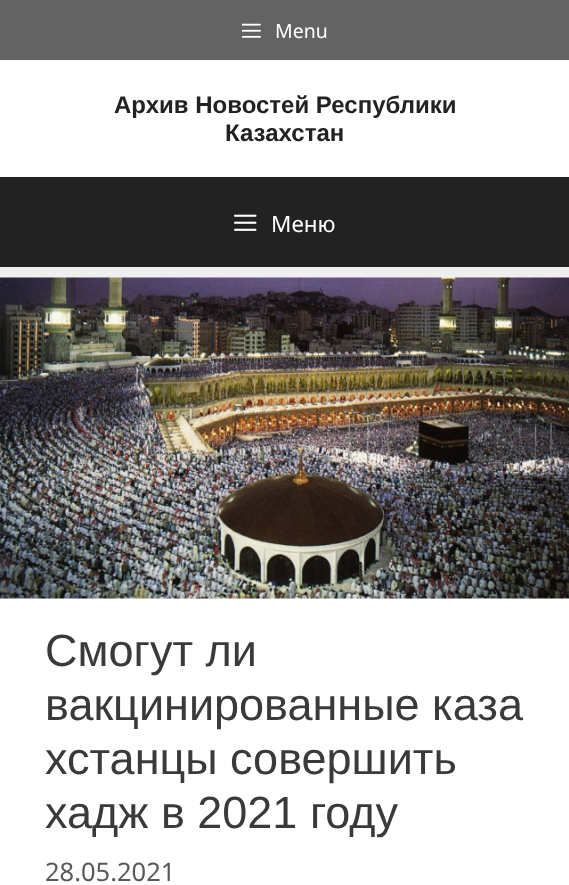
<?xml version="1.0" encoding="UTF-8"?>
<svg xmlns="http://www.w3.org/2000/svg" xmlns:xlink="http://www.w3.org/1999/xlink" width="569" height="885">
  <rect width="100%" height="100%" fill="#efefef" />
  <rect width="569" height="60" fill="#636363" />
  <image x="242" y="23" width="19" height="15" xlink:href="image1.png" />
  <rect y="60" width="569" height="117" fill="#ffffff" />
  <rect y="177" width="569" height="90" fill="#222222" />
  <image x="234" y="214" width="23" height="17" xlink:href="image2.png" />
  <rect y="598" width="569" height="287" fill="#ffffff" />
  <image x="0" y="277" width="569" height="322" xlink:href="image3.png" />
  <text x="275" y="38" style="font-family: Noto Sans; font-size: 19.5px; fill: #ffffff">Menu</text>
  <text x="114" y="113" style="font-family: Liberation Sans; font-size: 24px; font-weight: bold; fill: #222222">Архив Новостей Республики</text>
  <text x="225" y="141" style="font-family: Liberation Sans; font-size: 24px; font-weight: bold; fill: #222222">Казахстан</text>
  <text x="271" y="232" style="font-family: Noto Sans; font-size: 22.5px; fill: #ffffff">Меню</text>
  <text x="45" y="666" style="font-family: Liberation Sans; font-size: 45px; fill: #3a3a3a">Смогут ли</text>
  <text x="45" y="720" style="font-family: Liberation Sans; font-size: 45px; fill: #3a3a3a">вакцинированные каза</text>
  <text x="45" y="774" style="font-family: Liberation Sans; font-size: 45px; fill: #3a3a3a">хстанцы совершить</text>
  <text x="45" y="828" style="font-family: Liberation Sans; font-size: 45px; fill: #3a3a3a">хадж в 2021 году</text>
  <text x="45" y="881" style="font-family: Noto Sans; font-size: 25.5px; fill: #595959">28.05.2021</text>
</svg>
